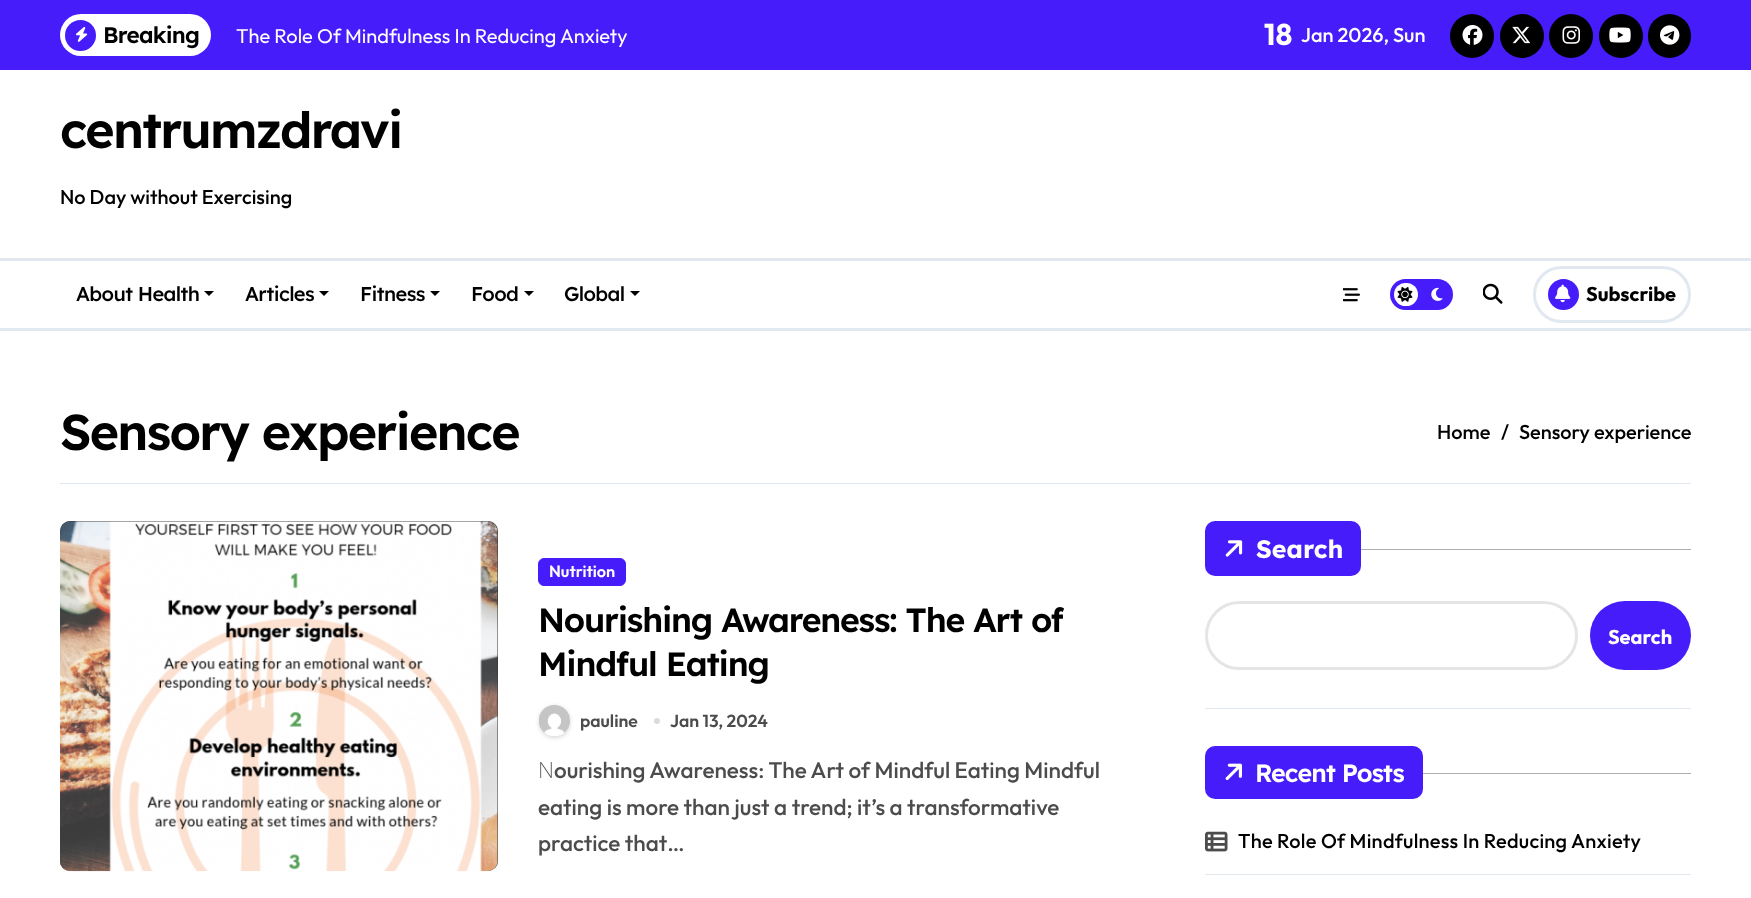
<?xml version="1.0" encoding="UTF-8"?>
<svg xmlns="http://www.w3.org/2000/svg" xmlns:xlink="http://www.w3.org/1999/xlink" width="1751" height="898">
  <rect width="100%" height="100%" fill="#ffffff" />
  <rect width="1751" height="70" fill="#461cfb" />
  <rect x="60" y="14" width="151" height="42" rx="21" fill="#ffffff" />
  <circle cx="80.5" cy="35.5" r="15.5" fill="#461cfb" />
  <image x="76" y="26" width="12" height="16" xlink:href="image1.png" />
  <circle cx="1472" cy="36" r="22" fill="#000000" />
  <image x="1462" y="25" width="21" height="20" xlink:href="image2.png" />
  <circle cx="1522" cy="36" r="22" fill="#000000" />
  <image x="1512" y="26" width="19" height="18" xlink:href="image3.png" />
  <circle cx="1571" cy="36" r="22" fill="#000000" />
  <image x="1562" y="26" width="18" height="18" xlink:href="image4.png" />
  <circle cx="1621" cy="36" r="22" fill="#000000" />
  <image x="1609" y="27" width="22" height="16" xlink:href="image5.png" />
  <rect x="1648" y="14" width="43" height="44" rx="21.5" fill="#000000" />
  <image x="1660" y="25" width="20" height="20" xlink:href="image6.png" />
  <rect y="258" width="1751" height="3" fill="#e2e8f0" />
  <rect y="328" width="1751" height="3" fill="#e2e8f0" />
  <path d="M 204 291 h 10 l -5 5 z" fill="#000000" />
  <path d="M 319 291 h 10 l -5 5 z" fill="#000000" />
  <path d="M 430 291 h 10 l -5 5 z" fill="#000000" />
  <path d="M 524 291 h 10 l -5 5 z" fill="#000000" />
  <path d="M 630 291 h 10 l -5 5 z" fill="#000000" />
  <image x="1343" y="288" width="17" height="14" xlink:href="image7.png" />
  <rect x="1390" y="279" width="63" height="31" rx="15.5" fill="#461cfb" />
  <rect x="1394" y="283" width="24" height="23" rx="11.5" fill="#ffffff" />
  <image x="1397" y="286" width="16" height="16" xlink:href="image8.png" />
  <image x="1431" y="287" width="12" height="14" xlink:href="image9.png" />
  <image x="1483" y="283" width="20" height="21" xlink:href="image10.png" />
  <rect x="1534.5" y="267.5" width="155" height="54" rx="27" fill="none" stroke="#e2e8f0" stroke-width="3" />
  <circle cx="1563.5" cy="294.5" r="15.5" fill="#461cfb" />
  <image x="1555" y="284" width="16" height="19" xlink:href="image11.png" />
  <rect x="60" y="483" width="1631" height="1" fill="#e2e8f0" />
  <rect x="60" y="521" width="438" height="350" rx="10" fill="#333333" />
  <image x="60" y="521" width="438" height="351" xlink:href="image12.png" />
  <rect x="538.5" y="558.5" width="87" height="27" rx="5.5" fill="#461cfb" stroke="#461cfb" />
  <rect x="539" y="706" width="31" height="32" rx="15.5" fill="#000000" fill-opacity="0.15" filter="blur(2px)" />
  <image x="539" y="705" width="31" height="31" xlink:href="image13.png" />
  <circle cx="657" cy="721" r="3" fill="#dbdbdb" />
  <rect x="1205" y="708" width="486" height="1" fill="#e2e8f0" />
  <rect x="1205" y="521" width="156" height="55" rx="10" fill="#461cfb" />
  <image x="1225" y="540" width="18" height="17" xlink:href="image14.png" />
  <rect x="1361" y="549" width="330" height="1" fill="#afafaf" />
  <rect x="1206.5" y="602.5" width="370" height="66" rx="33" fill="none" stroke="#e5e5e5" stroke-width="3" />
  <rect x="1590" y="601" width="101" height="69" rx="34.5" fill="#461cfb" />
  <rect x="1205" y="746" width="218" height="53" rx="10" fill="#461cfb" />
  <image x="1225" y="763" width="17" height="18" xlink:href="image15.png" />
  <rect x="1423" y="773" width="268" height="1" fill="#afafaf" />
  <rect x="1205" y="874" width="486" height="1" fill="#e2e8f0" />
  <image x="1205" y="831" width="23" height="21" xlink:href="image16.png" />
  <text x="103" y="43" style="font-family: Lexend Deca; font-size: 22.5px; font-weight: 600; letter-spacing: -0.75px; fill: #000000">Breaking</text>
  <text x="236" y="43" style="font-family: Outfit; font-size: 20px; fill: #ffffff">The Role Of Mindfulness In Reducing Anxiety</text>
  <text x="1264" y="45" style="font-family: Outfit; font-size: 30px; font-weight: bold; letter-spacing: 0.25px; fill: #ffffff">18</text>
  <text x="1301" y="42" style="font-family: Outfit; font-size: 20px; font-weight: 500; fill: #ffffff">Jan 2026, Sun</text>
  <text x="60" y="148" style="font-family: Lexend Deca; font-size: 50px; font-weight: 600; letter-spacing: -1.75px; fill: #000000">centrumzdravi</text>
  <text x="60" y="204" style="font-family: Outfit; font-size: 20px; font-weight: 500; fill: #000000">No Day without Exercising</text>
  <text x="76" y="301" style="font-family: Lexend Deca; font-size: 20px; font-weight: 500; letter-spacing: -0.6px; fill: #000000">About Health</text>
  <text x="245" y="301" style="font-family: Lexend Deca; font-size: 20px; font-weight: 500; letter-spacing: -0.6px; fill: #000000">Articles</text>
  <text x="360" y="301" style="font-family: Lexend Deca; font-size: 20px; font-weight: 500; letter-spacing: -0.6px; fill: #000000">Fitness</text>
  <text x="471" y="301" style="font-family: Lexend Deca; font-size: 20px; font-weight: 500; letter-spacing: -0.6px; fill: #000000">Food</text>
  <text x="564" y="301" style="font-family: Lexend Deca; font-size: 20px; font-weight: 500; letter-spacing: -0.6px; fill: #000000">Global</text>
  <text x="1586" y="301" style="font-family: Outfit; font-size: 20px; font-weight: bold; fill: #000000">Subscribe</text>
  <text x="60" y="450" style="font-family: Lexend Deca; font-size: 50px; font-weight: 600; letter-spacing: -1.75px; fill: #000000">Sensory experience</text>
  <text x="1437" y="439" style="font-family: Outfit; font-size: 20px; font-weight: 500; fill: #000000">Home</text>
  <text x="1501" y="439" style="font-family: Outfit; font-size: 20px; font-weight: 500; fill: #000000">/</text>
  <text x="1519" y="439" style="font-family: Outfit; font-size: 20px; font-weight: 500; fill: #000000">Sensory experience</text>
  <text x="549" y="577" style="font-family: Outfit; font-size: 16.25px; font-weight: 600; fill: #ffffff">Nutrition</text>
  <text x="538" y="632" style="font-family: Lexend Deca; font-size: 33.75px; font-weight: 600; letter-spacing: -1.2px; fill: #000000">Nourishing Awareness: The Art of</text>
  <text x="538" y="676" style="font-family: Lexend Deca; font-size: 33.75px; font-weight: 600; letter-spacing: -1.2px; fill: #000000">Mindful Eating</text>
  <text x="580" y="727" style="font-family: Outfit; font-size: 17.5px; font-weight: 600; fill: #4c4c4c">pauline</text>
  <text x="670" y="727" style="font-family: Outfit; font-size: 17.5px; font-weight: 600; fill: #4c4c4c">Jan 13, 2024</text>
  <text x="538" y="778" style="font-family: Noto Sans; font-size: 22.5px; font-weight: 200; fill: #4c4c4c">N</text>
  <text x="554" y="778" style="font-family: Outfit; font-size: 22.5px; font-weight: 500; fill: #4c4c4c">ourishing Awareness: The Art of Mindful Eating Mindful</text>
  <text x="538" y="815" style="font-family: Outfit; font-size: 22.5px; font-weight: 500; fill: #4c4c4c">eating is more than just a trend; it’s a transformative</text>
  <text x="538" y="851" style="font-family: Outfit; font-size: 22.5px; font-weight: 500; fill: #4c4c4c">practice that…</text>
  <text x="1256" y="558" style="font-family: Lexend Deca; font-size: 25px; font-weight: bold; fill: #ffffff">Search</text>
  <text x="1608" y="644" style="font-family: Outfit; font-size: 20px; font-weight: bold; fill: #ffffff">Search</text>
  <text x="1255" y="782" style="font-family: Lexend Deca; font-size: 25px; font-weight: 600; letter-spacing: -0.9px; fill: #ffffff">Recent Posts</text>
  <text x="1238" y="848" style="font-family: Outfit; font-size: 20px; font-weight: 500; letter-spacing: 0.25px; fill: #000000">The Role Of Mindfulness In Reducing Anxiety</text>
</svg>
